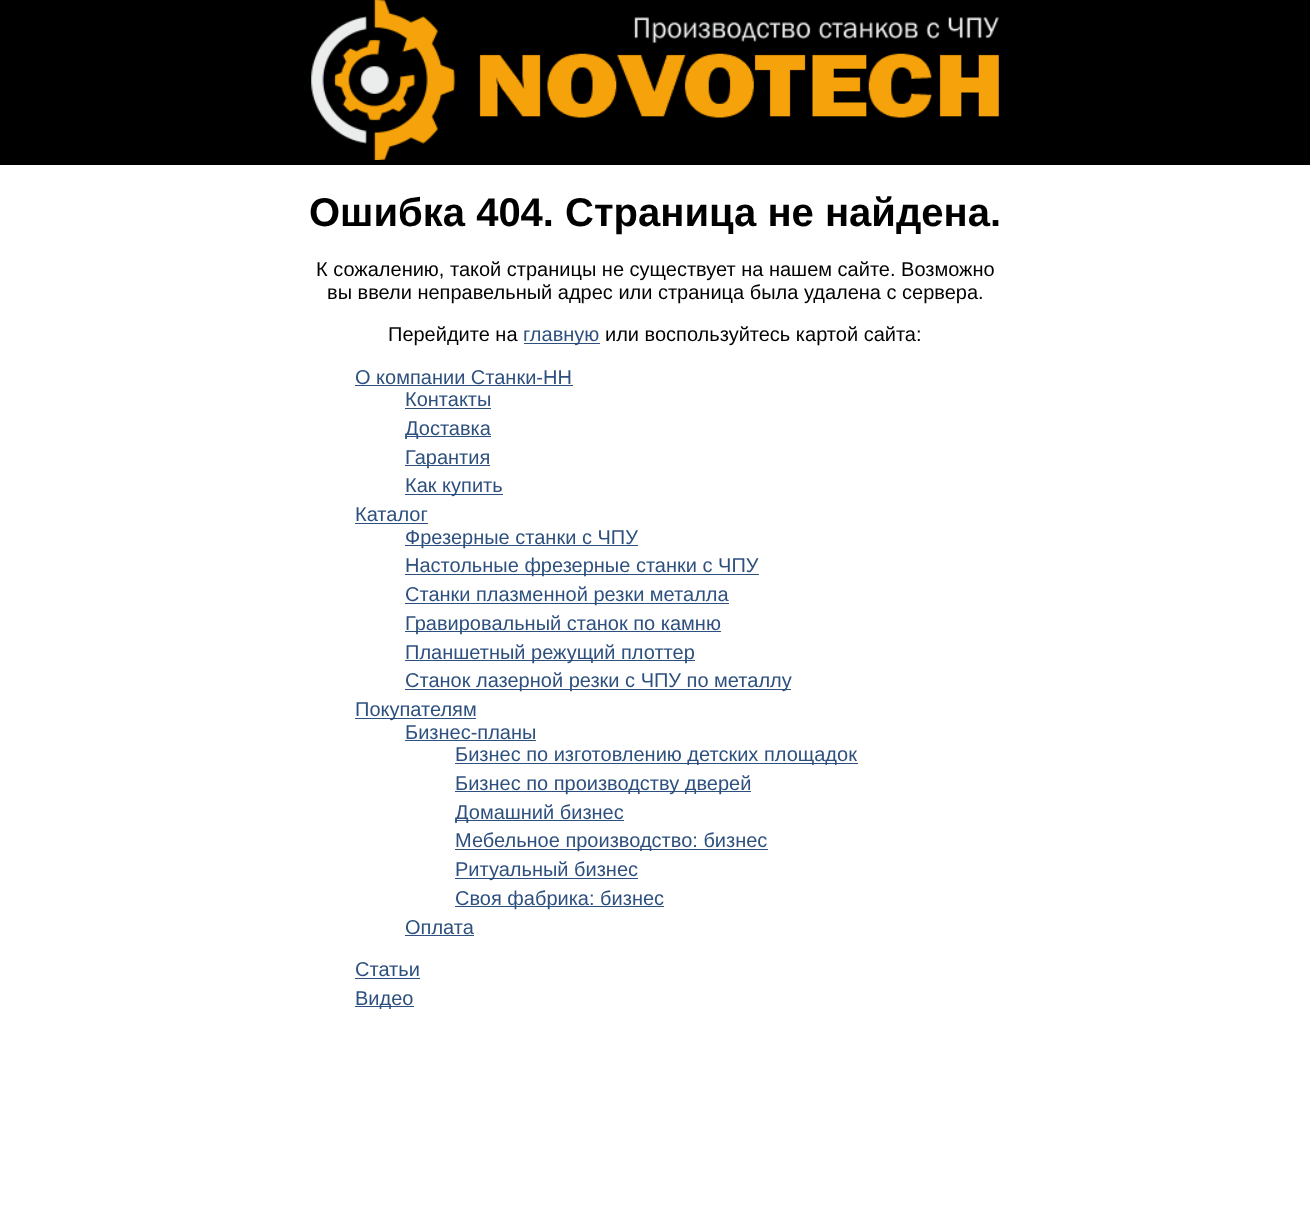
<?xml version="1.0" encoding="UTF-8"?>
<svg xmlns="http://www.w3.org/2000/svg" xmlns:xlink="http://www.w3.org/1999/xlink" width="1310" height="1231">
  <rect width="100%" height="100%" fill="#ffffff" />
  <rect width="1310" height="165" fill="#000000" />
  <image x="311" y="0" width="688" height="160" xlink:href="image1.png" />
  <rect x="524" y="343" width="76" height="1" fill="#2e507e" />
  <rect x="355" y="385" width="218" height="1" fill="#2e507e" />
  <rect x="405" y="408" width="86" height="1" fill="#2e507e" />
  <rect x="405" y="436" width="86" height="1" fill="#2e507e" />
  <rect x="405" y="465" width="85" height="1" fill="#2e507e" />
  <rect x="405" y="494" width="98" height="1" fill="#2e507e" />
  <rect x="355" y="523" width="73" height="1" fill="#2e507e" />
  <rect x="405" y="545" width="233" height="1" fill="#2e507e" />
  <rect x="405" y="574" width="354" height="1" fill="#2e507e" />
  <rect x="405" y="603" width="324" height="1" fill="#2e507e" />
  <rect x="405" y="631" width="316" height="1" fill="#2e507e" />
  <rect x="405" y="660" width="290" height="1" fill="#2e507e" />
  <rect x="405" y="689" width="386" height="1" fill="#2e507e" />
  <rect x="355" y="718" width="121" height="1" fill="#2e507e" />
  <rect x="405" y="740" width="131" height="1" fill="#2e507e" />
  <rect x="455" y="763" width="403" height="1" fill="#2e507e" />
  <rect x="455" y="791" width="296" height="1" fill="#2e507e" />
  <rect x="455" y="820" width="169" height="1" fill="#2e507e" />
  <rect x="455" y="849" width="313" height="1" fill="#2e507e" />
  <rect x="455" y="878" width="183" height="1" fill="#2e507e" />
  <rect x="455" y="906" width="209" height="1" fill="#2e507e" />
  <rect x="405" y="935" width="69" height="1" fill="#2e507e" />
  <rect x="355" y="978" width="65" height="1" fill="#2e507e" />
  <rect x="355" y="1006" width="59" height="1" fill="#2e507e" />
  <text x="309" y="226" style="font-family: Liberation Sans; font-size: 40px; font-weight: bold; fill: #000000">Ошибка 404. Cтраница не найдена.</text>
  <text x="316" y="276" style="font-family: Liberation Sans; font-size: 20px; fill: #000000">К сожалению, такой страницы не существует на нашем сайте. Возможно</text>
  <text x="327" y="299" style="font-family: Liberation Sans; font-size: 20px; fill: #000000">вы ввели неправельный адрес или страница была удалена с сервера.</text>
  <text x="388" y="341" style="font-family: Liberation Sans; font-size: 20px; fill: #000000">Перейдите на</text>
  <text x="523" y="341" style="font-family: Liberation Sans; font-size: 20px; fill: #2e507e">главную</text>
  <text x="605" y="341" style="font-family: Liberation Sans; font-size: 20px; fill: #000000">или воспользуйтесь картой сайта:</text>
  <text x="355" y="384" style="font-family: Liberation Sans; font-size: 20px; fill: #2e507e">О компании Станки-НН</text>
  <text x="405" y="406" style="font-family: Liberation Sans; font-size: 20px; fill: #2e507e">Контакты</text>
  <text x="405" y="435" style="font-family: Liberation Sans; font-size: 20px; fill: #2e507e">Доставка</text>
  <text x="405" y="464" style="font-family: Liberation Sans; font-size: 20px; fill: #2e507e">Гарантия</text>
  <text x="405" y="492" style="font-family: Liberation Sans; font-size: 20px; fill: #2e507e">Как купить</text>
  <text x="355" y="521" style="font-family: Liberation Sans; font-size: 20px; fill: #2e507e">Каталог</text>
  <text x="405" y="544" style="font-family: Liberation Sans; font-size: 20px; fill: #2e507e">Фрезерные станки с ЧПУ</text>
  <text x="405" y="572" style="font-family: Liberation Sans; font-size: 20px; fill: #2e507e">Настольные фрезерные станки с ЧПУ</text>
  <text x="405" y="601" style="font-family: Liberation Sans; font-size: 20px; fill: #2e507e">Станки плазменной резки металла</text>
  <text x="405" y="630" style="font-family: Liberation Sans; font-size: 20px; fill: #2e507e">Гравировальный станок по камню</text>
  <text x="405" y="659" style="font-family: Liberation Sans; font-size: 20px; fill: #2e507e">Планшетный режущий плоттер</text>
  <text x="405" y="687" style="font-family: Liberation Sans; font-size: 20px; fill: #2e507e">Станок лазерной резки с ЧПУ по металлу</text>
  <text x="355" y="716" style="font-family: Liberation Sans; font-size: 20px; fill: #2e507e">Покупателям</text>
  <text x="405" y="739" style="font-family: Liberation Sans; font-size: 20px; fill: #2e507e">Бизнес-планы</text>
  <text x="455" y="761" style="font-family: Liberation Sans; font-size: 20px; fill: #2e507e">Бизнес по изготовлению детских площадок</text>
  <text x="455" y="790" style="font-family: Liberation Sans; font-size: 20px; fill: #2e507e">Бизнес по производству дверей</text>
  <text x="455" y="819" style="font-family: Liberation Sans; font-size: 20px; fill: #2e507e">Домашний бизнес</text>
  <text x="455" y="847" style="font-family: Liberation Sans; font-size: 20px; fill: #2e507e">Мебельное производство: бизнес</text>
  <text x="455" y="876" style="font-family: Liberation Sans; font-size: 20px; fill: #2e507e">Ритуальный бизнес</text>
  <text x="455" y="905" style="font-family: Liberation Sans; font-size: 20px; fill: #2e507e">Своя фабрика: бизнес</text>
  <text x="405" y="934" style="font-family: Liberation Sans; font-size: 20px; fill: #2e507e">Оплата</text>
  <text x="355" y="976" style="font-family: Liberation Sans; font-size: 20px; fill: #2e507e">Статьи</text>
  <text x="355" y="1005" style="font-family: Liberation Sans; font-size: 20px; fill: #2e507e">Видео</text>
</svg>
